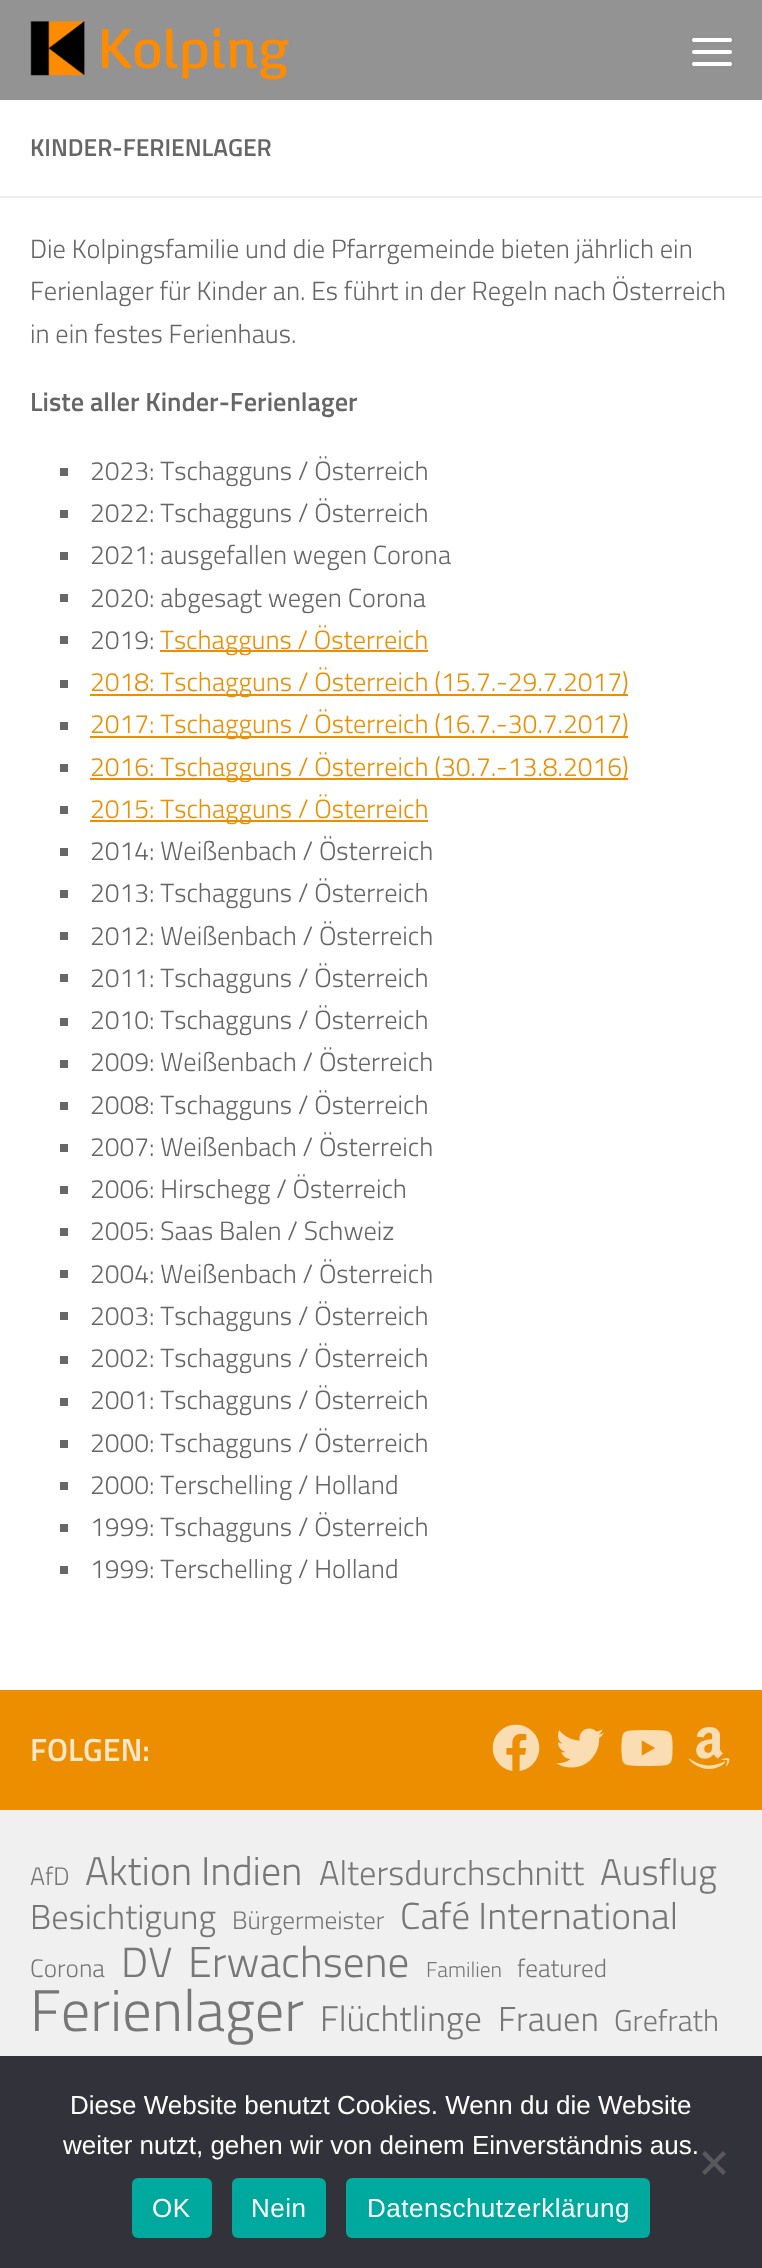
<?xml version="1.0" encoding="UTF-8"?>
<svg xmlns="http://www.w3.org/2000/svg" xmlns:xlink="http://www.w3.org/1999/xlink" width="762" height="2268">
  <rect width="100%" height="100%" fill="#ffffff" />
  <rect width="762" height="100" fill="#939393" />
  <image x="30" y="21" width="259" height="59" xlink:href="image1.png" />
  <rect x="692" y="38" width="40" height="4" rx="2" fill="#ffffff" />
  <rect x="692" y="50" width="40" height="4" rx="2" fill="#ffffff" />
  <rect x="692" y="62" width="40" height="4" rx="2" fill="#ffffff" />
  <rect y="196" width="762" height="2" fill="#eeeeee" />
  <rect x="60" y="468" width="8" height="8" fill="#666666" />
  <rect x="60" y="510" width="8" height="8" fill="#666666" />
  <rect x="60" y="552" width="8" height="8" fill="#666666" />
  <rect x="60" y="594" width="8" height="8" fill="#666666" />
  <rect x="60" y="636" width="8" height="8" fill="#666666" />
  <rect x="160" y="650" width="268" height="2" fill="#ed8e00" />
  <rect x="60" y="680" width="8" height="8" fill="#666666" />
  <rect x="90" y="694" width="538" height="2" fill="#ed8e00" />
  <rect x="60" y="722" width="8" height="8" fill="#666666" />
  <rect x="90" y="736" width="538" height="2" fill="#ed8e00" />
  <rect x="60" y="764" width="8" height="8" fill="#666666" />
  <rect x="90" y="778" width="538" height="2" fill="#ed8e00" />
  <rect x="60" y="806" width="8" height="8" fill="#666666" />
  <rect x="90" y="820" width="338" height="2" fill="#ed8e00" />
  <rect x="60" y="848" width="8" height="8" fill="#666666" />
  <rect x="60" y="890" width="8" height="8" fill="#666666" />
  <rect x="60" y="932" width="8" height="8" fill="#666666" />
  <rect x="60" y="974" width="8" height="8" fill="#666666" />
  <rect x="60" y="1018" width="8" height="8" fill="#666666" />
  <rect x="60" y="1060" width="8" height="8" fill="#666666" />
  <rect x="60" y="1102" width="8" height="8" fill="#666666" />
  <rect x="60" y="1144" width="8" height="8" fill="#666666" />
  <rect x="60" y="1186" width="8" height="8" fill="#666666" />
  <rect x="60" y="1228" width="8" height="8" fill="#666666" />
  <rect x="60" y="1270" width="8" height="8" fill="#666666" />
  <rect x="60" y="1312" width="8" height="8" fill="#666666" />
  <rect x="60" y="1356" width="8" height="8" fill="#666666" />
  <rect x="60" y="1398" width="8" height="8" fill="#666666" />
  <rect x="60" y="1440" width="8" height="8" fill="#666666" />
  <rect x="60" y="1482" width="8" height="8" fill="#666666" />
  <rect x="60" y="1524" width="8" height="8" fill="#666666" />
  <rect x="60" y="1566" width="8" height="8" fill="#666666" />
  <rect y="1810" width="762" height="246" fill="#f0f0f0" />
  <rect y="1690" width="762" height="120" fill="#ed8e00" />
  <image x="492" y="1724" width="48" height="47" xlink:href="image2.png" />
  <image x="556" y="1728" width="48" height="40" xlink:href="image3.png" />
  <image x="621" y="1730" width="52" height="36" xlink:href="image4.png" />
  <image x="688" y="1727" width="42" height="42" xlink:href="image5.png" />
  <rect y="2056" width="762" height="212" fill="#32323a" />
  <path d="M 723 2151 l 3 3 l -21 21 l -3 -3 z" fill="#59595d" />
  <path d="M 702 2154 l 3 -3 l 21 21 l -3 3 z" fill="#59595d" />
  <rect x="132" y="2178" width="80" height="60" rx="6" fill="#00a99d" />
  <rect x="232" y="2178" width="94" height="60" rx="6" fill="#00a99d" />
  <rect x="346" y="2178" width="304" height="60" rx="6" fill="#00a99d" />
  <text x="30" y="156" style="font-family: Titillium; font-size: 24.6px; font-weight: 600; fill: #666666">KINDER-FERIENLAGER</text>
  <text x="30" y="258" style="font-family: Titillium; font-size: 26.4px; font-weight: 300; fill: #666666">Die Kolpingsfamilie und die Pfarrgemeinde bieten jährlich ein</text>
  <text x="30" y="300" style="font-family: Titillium; font-size: 26.4px; font-weight: 300; fill: #666666">Ferienlager für Kinder an. Es führt in der Regeln nach Österreich</text>
  <text x="30" y="343" style="font-family: Titillium; font-size: 26.4px; font-weight: 300; fill: #666666">in ein festes Ferienhaus.</text>
  <text x="30" y="411" style="font-family: Titillium; font-size: 26.4px; font-weight: 600; fill: #666666">Liste aller Kinder-Ferienlager</text>
  <text x="90" y="480" style="font-family: Titillium; font-size: 26.4px; font-weight: 300; fill: #666666">2023: Tschagguns / Österreich</text>
  <text x="90" y="522" style="font-family: Titillium; font-size: 26.4px; font-weight: 300; fill: #666666">2022: Tschagguns / Österreich</text>
  <text x="90" y="564" style="font-family: Titillium; font-size: 26.4px; font-weight: 300; fill: #666666">2021: ausgefallen wegen Corona</text>
  <text x="90" y="607" style="font-family: Titillium; font-size: 26.4px; font-weight: 300; fill: #666666">2020: abgesagt wegen Corona</text>
  <text x="90" y="649" style="font-family: Titillium; font-size: 26.4px; font-weight: 300; fill: #666666">2019:</text>
  <text x="160" y="649" style="font-family: Titillium; font-size: 26.4px; font-weight: 300; fill: #ed8e00">Tschagguns / Österreich</text>
  <text x="90" y="691" style="font-family: Titillium; font-size: 26.4px; font-weight: 300; fill: #ed8e00">2018: Tschagguns / Österreich (15.7.-29.7.2017)</text>
  <text x="90" y="733" style="font-family: Titillium; font-size: 26.4px; font-weight: 300; fill: #ed8e00">2017: Tschagguns / Österreich (16.7.-30.7.2017)</text>
  <text x="90" y="776" style="font-family: Titillium; font-size: 26.4px; font-weight: 300; fill: #ed8e00">2016: Tschagguns / Österreich (30.7.-13.8.2016)</text>
  <text x="90" y="818" style="font-family: Titillium; font-size: 26.4px; font-weight: 300; fill: #ed8e00">2015: Tschagguns / Österreich</text>
  <text x="90" y="860" style="font-family: Titillium; font-size: 26.4px; font-weight: 300; fill: #666666">2014: Weißenbach / Österreich</text>
  <text x="90" y="902" style="font-family: Titillium; font-size: 26.4px; font-weight: 300; fill: #666666">2013: Tschagguns / Österreich</text>
  <text x="90" y="945" style="font-family: Titillium; font-size: 26.4px; font-weight: 300; fill: #666666">2012: Weißenbach / Österreich</text>
  <text x="90" y="987" style="font-family: Titillium; font-size: 26.4px; font-weight: 300; fill: #666666">2011: Tschagguns / Österreich</text>
  <text x="90" y="1029" style="font-family: Titillium; font-size: 26.4px; font-weight: 300; fill: #666666">2010: Tschagguns / Österreich</text>
  <text x="90" y="1071" style="font-family: Titillium; font-size: 26.4px; font-weight: 300; fill: #666666">2009: Weißenbach / Österreich</text>
  <text x="90" y="1114" style="font-family: Titillium; font-size: 26.4px; font-weight: 300; fill: #666666">2008: Tschagguns / Österreich</text>
  <text x="90" y="1156" style="font-family: Titillium; font-size: 26.4px; font-weight: 300; fill: #666666">2007: Weißenbach / Österreich</text>
  <text x="90" y="1198" style="font-family: Titillium; font-size: 26.4px; font-weight: 300; fill: #666666">2006: Hirschegg / Österreich</text>
  <text x="90" y="1240" style="font-family: Titillium; font-size: 26.4px; font-weight: 300; fill: #666666">2005: Saas Balen / Schweiz</text>
  <text x="90" y="1283" style="font-family: Titillium; font-size: 26.4px; font-weight: 300; fill: #666666">2004: Weißenbach / Österreich</text>
  <text x="90" y="1325" style="font-family: Titillium; font-size: 26.4px; font-weight: 300; fill: #666666">2003: Tschagguns / Österreich</text>
  <text x="90" y="1367" style="font-family: Titillium; font-size: 26.4px; font-weight: 300; fill: #666666">2002: Tschagguns / Österreich</text>
  <text x="90" y="1409" style="font-family: Titillium; font-size: 26.4px; font-weight: 300; fill: #666666">2001: Tschagguns / Österreich</text>
  <text x="90" y="1452" style="font-family: Titillium; font-size: 26.4px; font-weight: 300; fill: #666666">2000: Tschagguns / Österreich</text>
  <text x="90" y="1494" style="font-family: Titillium; font-size: 26.4px; font-weight: 300; fill: #666666">2000: Terschelling / Holland</text>
  <text x="90" y="1536" style="font-family: Titillium; font-size: 26.4px; font-weight: 300; fill: #666666">1999: Tschagguns / Österreich</text>
  <text x="90" y="1578" style="font-family: Titillium; font-size: 26.4px; font-weight: 300; fill: #666666">1999: Terschelling / Holland</text>
  <text x="30" y="1761" style="font-family: Titillium; font-size: 32px; font-weight: 600; fill: #fbe8cc">FOLGEN:</text>
  <text x="30" y="1885" style="font-family: Titillium; font-size: 25.25px; font-weight: 300; fill: #777777">AfD</text>
  <text x="85" y="1885" style="font-family: Titillium; font-size: 40px; font-weight: 300; fill: #777777">Aktion Indien</text>
  <text x="319" y="1885" style="font-family: Titillium; font-size: 34.5px; font-weight: 300; fill: #777777">Altersdurchschnitt</text>
  <text x="600" y="1885" style="font-family: Titillium; font-size: 37px; font-weight: 300; fill: #777777">Ausflug</text>
  <text x="30" y="1929" style="font-family: Titillium; font-size: 34.5px; font-weight: 300; fill: #777777">Besichtigung</text>
  <text x="232" y="1929" style="font-family: Titillium; font-size: 25.25px; font-weight: 300; fill: #777777">Bürgermeister</text>
  <text x="400" y="1929" style="font-family: Titillium; font-size: 37.5px; font-weight: 300; fill: #777777">Café International</text>
  <text x="30" y="1977" style="font-family: Titillium; font-size: 25.25px; font-weight: 300; fill: #777777">Corona</text>
  <text x="121" y="1977" style="font-family: Titillium; font-size: 42px; font-weight: 300; fill: #777777">DV</text>
  <text x="188" y="1977" style="font-family: Titillium; font-size: 43.25px; font-weight: 300; fill: #777777">Erwachsene</text>
  <text x="426" y="1977" style="font-family: Titillium; font-size: 21.5px; font-weight: 300; fill: #777777">Familien</text>
  <text x="517" y="1977" style="font-family: Titillium; font-size: 25.25px; font-weight: 300; fill: #777777">featured</text>
  <text x="30" y="2031" style="font-family: Titillium; font-size: 58.5px; font-weight: 300; fill: #777777">Ferienlager</text>
  <text x="320" y="2031" style="font-family: Titillium; font-size: 35.5px; font-weight: 300; fill: #777777">Flüchtlinge</text>
  <text x="498" y="2031" style="font-family: Titillium; font-size: 34.5px; font-weight: 300; fill: #777777">Frauen</text>
  <text x="614" y="2031" style="font-family: Titillium; font-size: 30px; font-weight: 300; fill: #777777">Grefrath</text>
  <text x="70" y="2114" style="font-family: Liberation Sans; font-size: 26px; fill: #ffffff">Diese Website benutzt Cookies. Wenn du die Website</text>
  <text x="63" y="2154" style="font-family: Liberation Sans; font-size: 26px; fill: #ffffff">weiter nutzt, gehen wir von deinem Einverständnis aus.</text>
  <text x="152" y="2217" style="font-family: Liberation Sans; font-size: 26px; letter-spacing: 0.5px; fill: #ffffff">OK</text>
  <text x="251" y="2217" style="font-family: Liberation Sans; font-size: 26px; letter-spacing: 0.5px; fill: #ffffff">Nein</text>
  <text x="367" y="2217" style="font-family: Liberation Sans; font-size: 26px; letter-spacing: 0.5px; fill: #ffffff">Datenschutzerklärung</text>
</svg>
